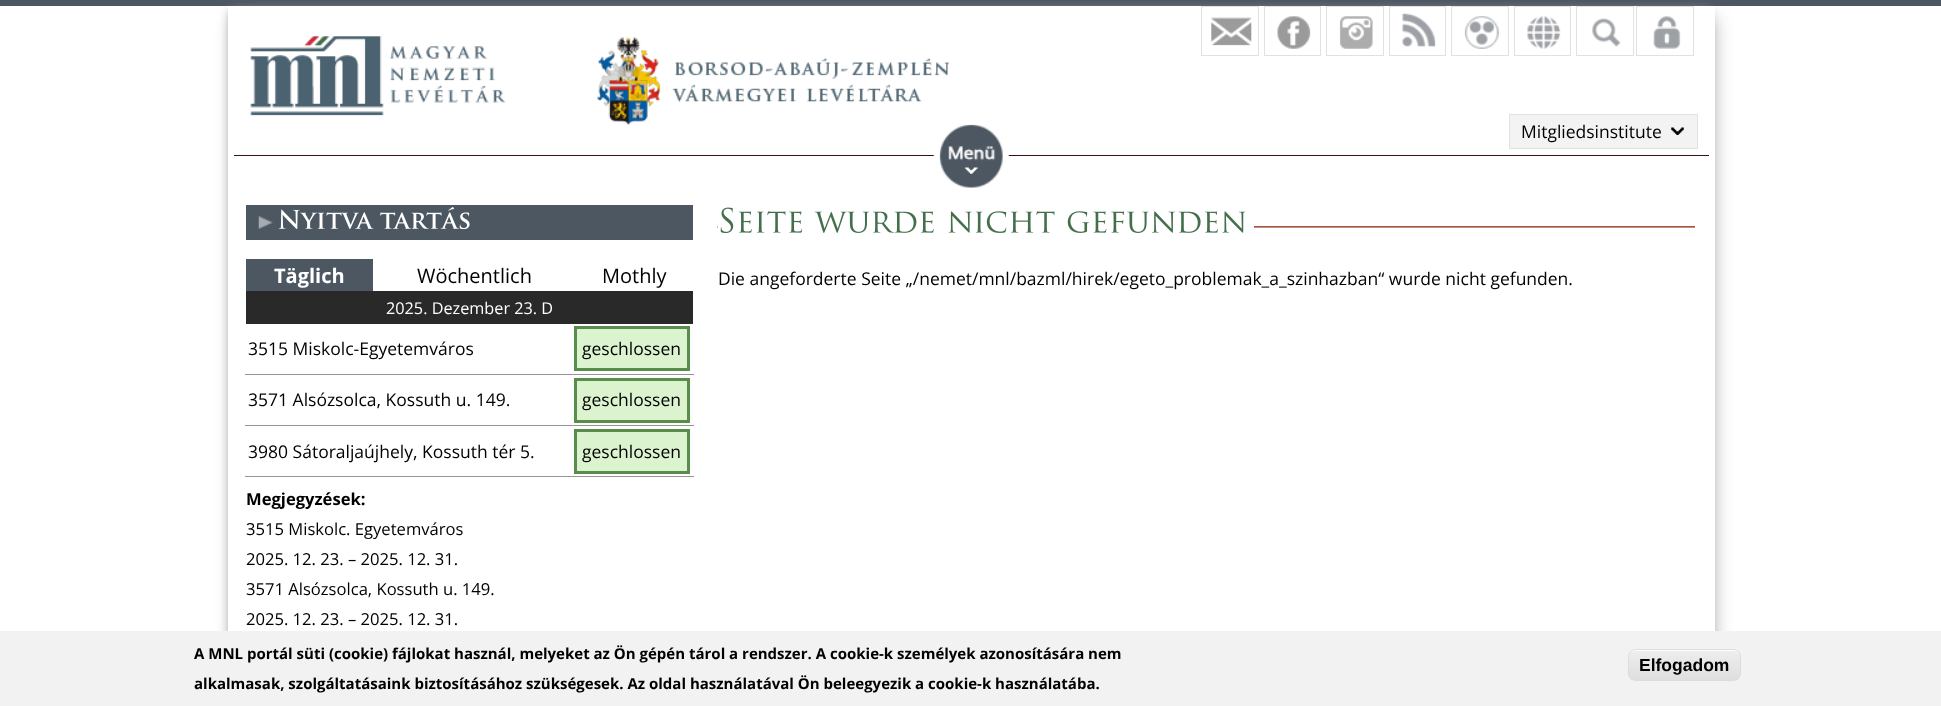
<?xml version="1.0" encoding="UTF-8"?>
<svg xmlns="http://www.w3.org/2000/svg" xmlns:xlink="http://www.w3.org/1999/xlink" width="1941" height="706">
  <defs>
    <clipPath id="clip1"><path d="M 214 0 h 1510 v 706 h -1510 z m 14 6 h 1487 v 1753 h -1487 z" clip-rule="evenodd" /></clipPath>
    <clipPath id="clip2"><path d="M 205 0 h 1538 v 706 h -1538 z m 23 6 h 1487 v 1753 h -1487 z" clip-rule="evenodd" /></clipPath>
    <clipPath id="clip3"><rect x="1628" y="649" width="113" height="32" rx="8" /></clipPath>
    <linearGradient id="g1" gradientUnits="userSpaceOnUse" x1="1684" y1="650" x2="1684" y2="680"><stop offset="0.05" stop-color="#ededed" /><stop offset="1" stop-color="#dfdfdf" /></linearGradient>
  </defs>
  <rect width="100%" height="100%" fill="#ffffff" />
  <rect width="1941" height="6" fill="#4d5762" />
  <g clip-path="url(#clip1)">
    <rect x="230" y="11" width="1478" height="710" fill="#a3a3a3" filter="blur(5px)" />
  </g>
  <g clip-path="url(#clip2)">
    <rect x="235" y="18" width="1478" height="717" fill="#a3a3a3" filter="blur(9.5px)" />
  </g>
  <rect x="234" y="155" width="1475" height="1" fill="#36130f" />
  <image x="597" y="37" width="353" height="88" xlink:href="image11.png" />
  <image x="933" y="124" width="76" height="64" xlink:href="image1.png" />
  <image x="1211" y="17" width="41" height="29" xlink:href="image2.png" />
  <rect x="1201.5" y="6.5" width="57" height="49" fill="none" stroke="#e1e1e1" />
  <image x="1277" y="16" width="34" height="33" xlink:href="image3.png" />
  <rect x="1264.5" y="6.5" width="56" height="49" fill="none" stroke="#e1e1e1" />
  <image x="1339" y="16" width="34" height="33" xlink:href="image4.png" />
  <rect x="1326.5" y="6.5" width="57" height="49" fill="none" stroke="#e1e1e1" />
  <image x="1402" y="13" width="34" height="34" xlink:href="image5.png" />
  <rect x="1389.5" y="6.5" width="56" height="49" fill="none" stroke="#e1e1e1" />
  <image x="1464" y="16" width="35" height="33" xlink:href="image6.png" />
  <rect x="1451.5" y="6.5" width="57" height="49" fill="none" stroke="#e1e1e1" />
  <image x="1527" y="16" width="34" height="33" xlink:href="image7.png" />
  <rect x="1514.5" y="6.5" width="56" height="49" fill="none" stroke="#e1e1e1" />
  <image x="1592" y="18" width="29" height="29" xlink:href="image8.png" />
  <rect x="1576.5" y="6.5" width="57" height="49" fill="none" stroke="#e1e1e1" />
  <image x="1653" y="16" width="28" height="33" xlink:href="image9.png" />
  <rect x="1636.5" y="6.5" width="57" height="49" fill="none" stroke="#e1e1e1" />
  <image x="250" y="36" width="256" height="80" xlink:href="image10.png" />
  <rect x="1510" y="115" width="187" height="33" fill="#f3f3f3" />
  <image x="1671" y="127" width="13" height="8" xlink:href="image12.png" />
  <rect x="1509.5" y="114.5" width="188" height="34" fill="none" stroke="#e1e1e1" />
  <rect x="246" y="205" width="447" height="35" fill="#4d5762" />
  <image x="258" y="216" width="15" height="13" xlink:href="image13.png" />
  <image x="278" y="207" width="192" height="23" xlink:href="image14.png" />
  <rect x="246" y="259" width="127" height="32" fill="#4d5762" />
  <rect x="246" y="291" width="447" height="33" fill="#292929" />
  <rect x="245" y="374" width="449" height="1" fill="#949494" />
  <rect x="575.5" y="327.5" width="113" height="42" fill="#dcf3cf" stroke="#598d4c" stroke-width="3" />
  <rect x="245" y="425" width="449" height="1" fill="#949494" />
  <rect x="575.5" y="379.5" width="113" height="42" fill="#dcf3cf" stroke="#598d4c" stroke-width="3" />
  <rect x="245" y="476" width="449" height="1" fill="#949494" />
  <rect x="575.5" y="430.5" width="113" height="42" fill="#dcf3cf" stroke="#598d4c" stroke-width="3" />
  <image x="717" y="226" width="978" height="2" xlink:href="image15.png" />
  <rect x="718" y="226" width="536" height="2" fill="#ffffff" />
  <image x="720" y="207" width="526" height="27" xlink:href="image16.png" />
  <rect y="631" width="1941" height="75" fill="#f2f2f2" />
  <g clip-path="url(#clip3)">
    <rect x="1628" y="650" width="113" height="30" fill="url(#g1)" />
  </g>
  <path d="M 1635 651 h 99 c 3 0 6 3 6 7 c 0 -12 -13 -8 -22 -8 h -66 c -10 0 -23 -4 -23 8 c 0 -4 3 -7 6 -7 z" fill="#ffffff" />
  <rect x="1628.5" y="649.5" width="112" height="31" rx="7.5" fill="none" stroke="#dcdcdc" />
  <text x="1521" y="138" style="font-family: Open Sans; font-size: 17.5px; fill: #000000">Mitgliedsinstitute</text>
  <text x="274" y="283" style="font-family: Open Sans; font-size: 20px; font-weight: bold; fill: #ffffff">Täglich</text>
  <text x="417" y="283" style="font-family: Open Sans; font-size: 20px; fill: #000000">Wöchentlich</text>
  <text x="602" y="283" style="font-family: Open Sans; font-size: 20px; fill: #000000">Mothly</text>
  <text x="386" y="314" style="font-family: Open Sans; font-size: 16.25px; fill: #ffffff">2025. Dezember 23. D</text>
  <text x="248" y="355" style="font-family: Open Sans; font-size: 17.5px; fill: #000000">3515 Miskolc-Egyetemváros</text>
  <text x="582" y="355" style="font-family: Open Sans; font-size: 17.5px; fill: #000000">geschlossen</text>
  <text x="248" y="406" style="font-family: Open Sans; font-size: 17.5px; fill: #000000">3571 Alsózsolca, Kossuth u. 149.</text>
  <text x="582" y="406" style="font-family: Open Sans; font-size: 17.5px; fill: #000000">geschlossen</text>
  <text x="248" y="458" style="font-family: Open Sans; font-size: 17.5px; fill: #000000">3980 Sátoraljaújhely, Kossuth tér 5.</text>
  <text x="582" y="458" style="font-family: Open Sans; font-size: 17.5px; fill: #000000">geschlossen</text>
  <text x="246" y="505" style="font-family: Open Sans; font-size: 16.6px; font-weight: bold; fill: #000000">Megjegyzések:</text>
  <text x="246" y="535" style="font-family: Open Sans; font-size: 16.6px; fill: #000000">3515 Miskolc. Egyetemváros</text>
  <text x="246" y="565" style="font-family: Open Sans; font-size: 16.6px; fill: #000000">2025. 12. 23. – 2025. 12. 31.</text>
  <text x="246" y="595" style="font-family: Open Sans; font-size: 16.6px; fill: #000000">3571 Alsózsolca, Kossuth u. 149.</text>
  <text x="246" y="625" style="font-family: Open Sans; font-size: 16.6px; fill: #000000">2025. 12. 23. – 2025. 12. 31.</text>
  <text x="718" y="285" style="font-family: Open Sans; font-size: 17.5px; fill: #000000">Die angeforderte Seite „/nemet/mnl/bazml/hirek/egeto_problemak_a_szinhazban“ wurde nicht gefunden.</text>
  <text x="194" y="659" style="font-family: Open Sans; font-size: 15px; font-weight: bold; fill: #000000">A MNL portál süti (cookie) fájlokat használ, melyeket az Ön gépén tárol a rendszer. A cookie-k személyek azonosítására nem</text>
  <text x="194" y="689" style="font-family: Open Sans; font-size: 15px; font-weight: bold; fill: #000000">alkalmasak, szolgáltatásaink biztosításához szükségesek. Az oldal használatával Ön beleegyezik a cookie-k használatába.</text>
  <text x="1639" y="671" style="font-family: Liberation Sans; font-size: 17.5px; font-weight: bold; fill: #000000">Elfogadom</text>
</svg>
